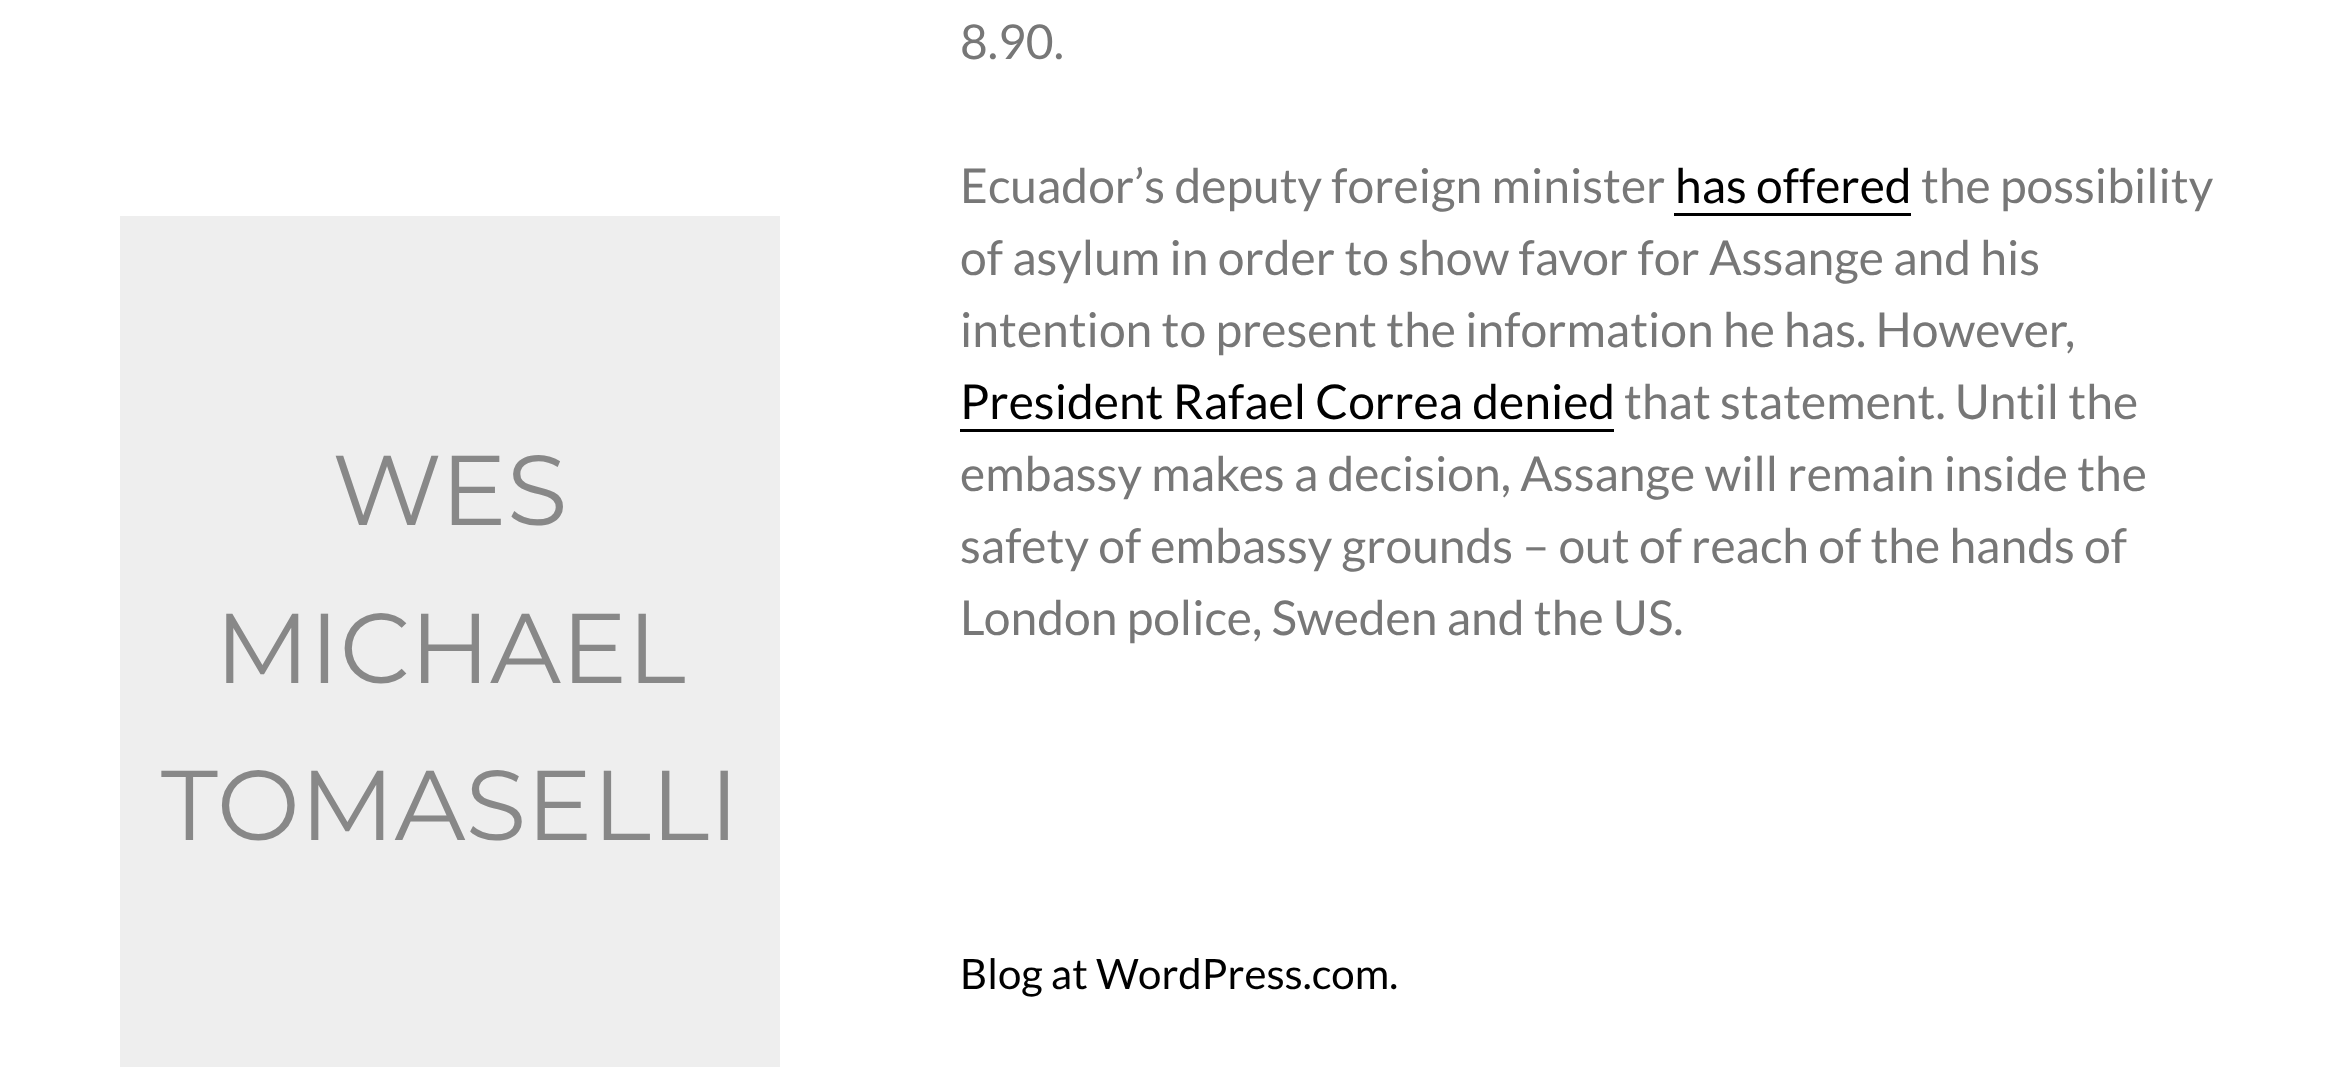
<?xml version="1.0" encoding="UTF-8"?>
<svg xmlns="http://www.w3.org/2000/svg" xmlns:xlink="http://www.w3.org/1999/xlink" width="2346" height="1067">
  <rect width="100%" height="100%" fill="#ffffff" />
  <rect x="120" y="216" width="660" height="851" fill="#eeeeee" />
  <rect x="1674" y="213" width="237" height="3" fill="#000000" />
  <rect x="960" y="429" width="654" height="3" fill="#000000" />
  <text x="332" y="525" style="font-family: Montserrat; font-size: 99px; font-weight: 100; fill: #888888">WES</text>
  <text x="215" y="683" style="font-family: Montserrat; font-size: 99px; font-weight: 100; fill: #888888">MICHAEL</text>
  <text x="161" y="840" style="font-family: Montserrat; font-size: 99px; font-weight: 100; fill: #888888">TOMASELLI</text>
  <text x="960" y="59" style="font-family: Lato; font-size: 48px; fill: #777777">8.90.</text>
  <text x="960" y="203" style="font-family: Lato; font-size: 48px; fill: #777777">Ecuador’s deputy foreign minister</text>
  <text x="1675" y="203" style="font-family: Lato; font-size: 48px; fill: #000000">has offered</text>
  <text x="1921" y="203" style="font-family: Lato; font-size: 48px; fill: #777777">the possibility</text>
  <text x="960" y="275" style="font-family: Lato; font-size: 48px; fill: #777777">of asylum in order to show favor for Assange and his</text>
  <text x="960" y="347" style="font-family: Lato; font-size: 48px; fill: #777777">intention to present the information he has. However,</text>
  <text x="960" y="419" style="font-family: Lato; font-size: 48px; fill: #000000">President Rafael Correa denied</text>
  <text x="1624" y="419" style="font-family: Lato; font-size: 48px; fill: #777777">that statement. Until the</text>
  <text x="960" y="491" style="font-family: Lato; font-size: 48px; fill: #777777">embassy makes a decision, Assange will remain inside the</text>
  <text x="960" y="563" style="font-family: Lato; font-size: 48px; fill: #777777">safety of embassy grounds – out of reach of the hands of</text>
  <text x="960" y="635" style="font-family: Lato; font-size: 48px; fill: #777777">London police, Sweden and the US.</text>
  <text x="960" y="989" style="font-family: Lato; font-size: 42px; fill: #000000">Blog at WordPress.com.</text>
</svg>
